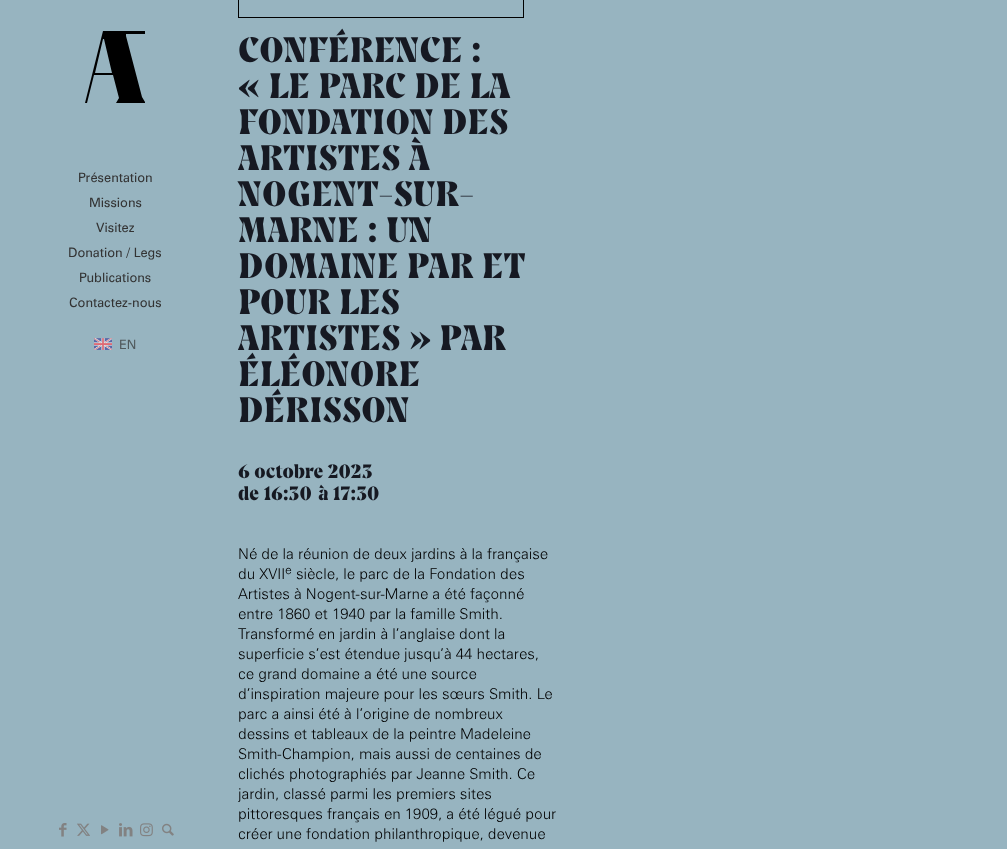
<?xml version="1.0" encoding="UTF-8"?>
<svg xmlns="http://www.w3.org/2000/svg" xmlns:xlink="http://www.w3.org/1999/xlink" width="1007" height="849">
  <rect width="100%" height="100%" fill="#97b4c0" />
  <path d="M 103 39 h 1 l 8 34 h -17 z m 0 -8 l -18 72 h 2 l 7 -28 h 19 l 6 23 l -3 5 h 29 v -1 l -3 -5 l -16 -61 v -2 h 19 v -3 z" fill="#000000" />
  <image x="94" y="338" width="18" height="12" xlink:href="image1.png" />
  <image x="59" y="823" width="8" height="14" xlink:href="image2.png" />
  <image x="77" y="823" width="13" height="13" xlink:href="image3.png" />
  <image x="101" y="825" width="8" height="10" xlink:href="image4.png" />
  <image x="119" y="823" width="14" height="14" xlink:href="image5.png" />
  <image x="140" y="823" width="13" height="14" xlink:href="image6.png" />
  <image x="162" y="823" width="12" height="13" xlink:href="image7.png" />
  <rect x="238.5" y="-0.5" width="285" height="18" fill="none" stroke="#000000" />
  <image x="318" y="484" width="10" height="17" xlink:href="image8.png" />
  <text x="78" y="182" style="font-family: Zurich; font-size: 13px; fill: #333333">Présentation</text>
  <text x="89" y="207" style="font-family: Zurich; font-size: 13px; fill: #333333">Missions</text>
  <text x="96" y="232" style="font-family: Zurich; font-size: 13px; fill: #333333">Visitez</text>
  <text x="68" y="257" style="font-family: Zurich; font-size: 13px; fill: #333333">Donation / Legs</text>
  <text x="79" y="282" style="font-family: Zurich; font-size: 13px; fill: #333333">Publications</text>
  <text x="69" y="307" style="font-family: Zurich; font-size: 13px; fill: #333333">Contactez-nous</text>
  <text x="119" y="349" style="font-family: Zurich; font-size: 13px; fill: #515a5d">EN</text>
  <text x="238" y="62" style="font-family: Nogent; font-size: 33px; fill: #161922">CONFÉRENCE :</text>
  <text x="238" y="98" style="font-family: Nogent; font-size: 33px; fill: #161922">« LE PARC DE LA</text>
  <text x="238" y="134" style="font-family: Nogent; font-size: 33px; fill: #161922">FONDATION DES</text>
  <text x="238" y="170" style="font-family: Nogent; font-size: 33px; fill: #161922">ARTISTES À</text>
  <text x="238" y="206" style="font-family: Nogent; font-size: 33px; fill: #161922">NOGENT-SUR-</text>
  <text x="238" y="242" style="font-family: Nogent; font-size: 33px; fill: #161922">MARNE : UN</text>
  <text x="238" y="278" style="font-family: Nogent; font-size: 33px; fill: #161922">DOMAINE PAR ET</text>
  <text x="238" y="314" style="font-family: Nogent; font-size: 33px; fill: #161922">POUR LES</text>
  <text x="238" y="350" style="font-family: Nogent; font-size: 33px; fill: #161922">ARTISTES » PAR</text>
  <text x="238" y="386" style="font-family: Nogent; font-size: 33px; fill: #161922">ÉLÉONORE</text>
  <text x="238" y="422" style="font-family: Nogent; font-size: 33px; fill: #161922">DÉRISSON</text>
  <text x="238" y="478" style="font-family: Nogent; font-size: 18px; fill: #161922">6 octobre 2023</text>
  <text x="238" y="500" style="font-family: Nogent; font-size: 18px; fill: #161922">de 16:30</text>
  <text x="333" y="500" style="font-family: Nogent; font-size: 18px; fill: #161922">17:30</text>
  <text x="238" y="559" style="font-family: Zurich; font-size: 15px; font-weight: 300; fill: #000000">Né de la réunion de deux jardins à la française</text>
  <text x="238" y="579" style="font-family: Zurich; font-size: 15px; font-weight: 300; fill: #000000">du XVII</text>
  <text x="285" y="574" style="font-family: Zurich; font-size: 12px; font-weight: 300; fill: #000000">e</text>
  <text x="296" y="579" style="font-family: Zurich; font-size: 15px; font-weight: 300; fill: #000000">siècle, le parc de la Fondation des</text>
  <text x="238" y="599" style="font-family: Zurich; font-size: 15px; font-weight: 300; fill: #000000">Artistes à Nogent-sur-Marne a été façonné</text>
  <text x="238" y="619" style="font-family: Zurich; font-size: 15px; font-weight: 300; fill: #000000">entre 1860 et 1940 par la famille Smith.</text>
  <text x="238" y="639" style="font-family: Zurich; font-size: 15px; font-weight: 300; fill: #000000">Transformé en jardin à l’anglaise dont la</text>
  <text x="238" y="659" style="font-family: Zurich; font-size: 15px; font-weight: 300; fill: #000000">superficie s’est étendue jusqu’à 44 hectares,</text>
  <text x="238" y="679" style="font-family: Zurich; font-size: 15px; font-weight: 300; fill: #000000">ce grand domaine a été une source</text>
  <text x="238" y="699" style="font-family: Zurich; font-size: 15px; font-weight: 300; fill: #000000">d’inspiration majeure pour les sœurs Smith. Le</text>
  <text x="238" y="719" style="font-family: Zurich; font-size: 15px; font-weight: 300; fill: #000000">parc a ainsi été à l’origine de nombreux</text>
  <text x="238" y="739" style="font-family: Zurich; font-size: 15px; font-weight: 300; fill: #000000">dessins et tableaux de la peintre Madeleine</text>
  <text x="238" y="759" style="font-family: Zurich; font-size: 15px; font-weight: 300; fill: #000000">Smith-Champion, mais aussi de centaines de</text>
  <text x="238" y="779" style="font-family: Zurich; font-size: 15px; font-weight: 300; fill: #000000">clichés photographiés par Jeanne Smith. Ce</text>
  <text x="238" y="799" style="font-family: Zurich; font-size: 15px; font-weight: 300; fill: #000000">jardin, classé parmi les premiers sites</text>
  <text x="238" y="819" style="font-family: Zurich; font-size: 15px; font-weight: 300; fill: #000000">pittoresques français en 1909, a été légué pour</text>
  <text x="238" y="839" style="font-family: Zurich; font-size: 15px; font-weight: 300; fill: #000000">créer une fondation philanthropique, devenue</text>
</svg>
